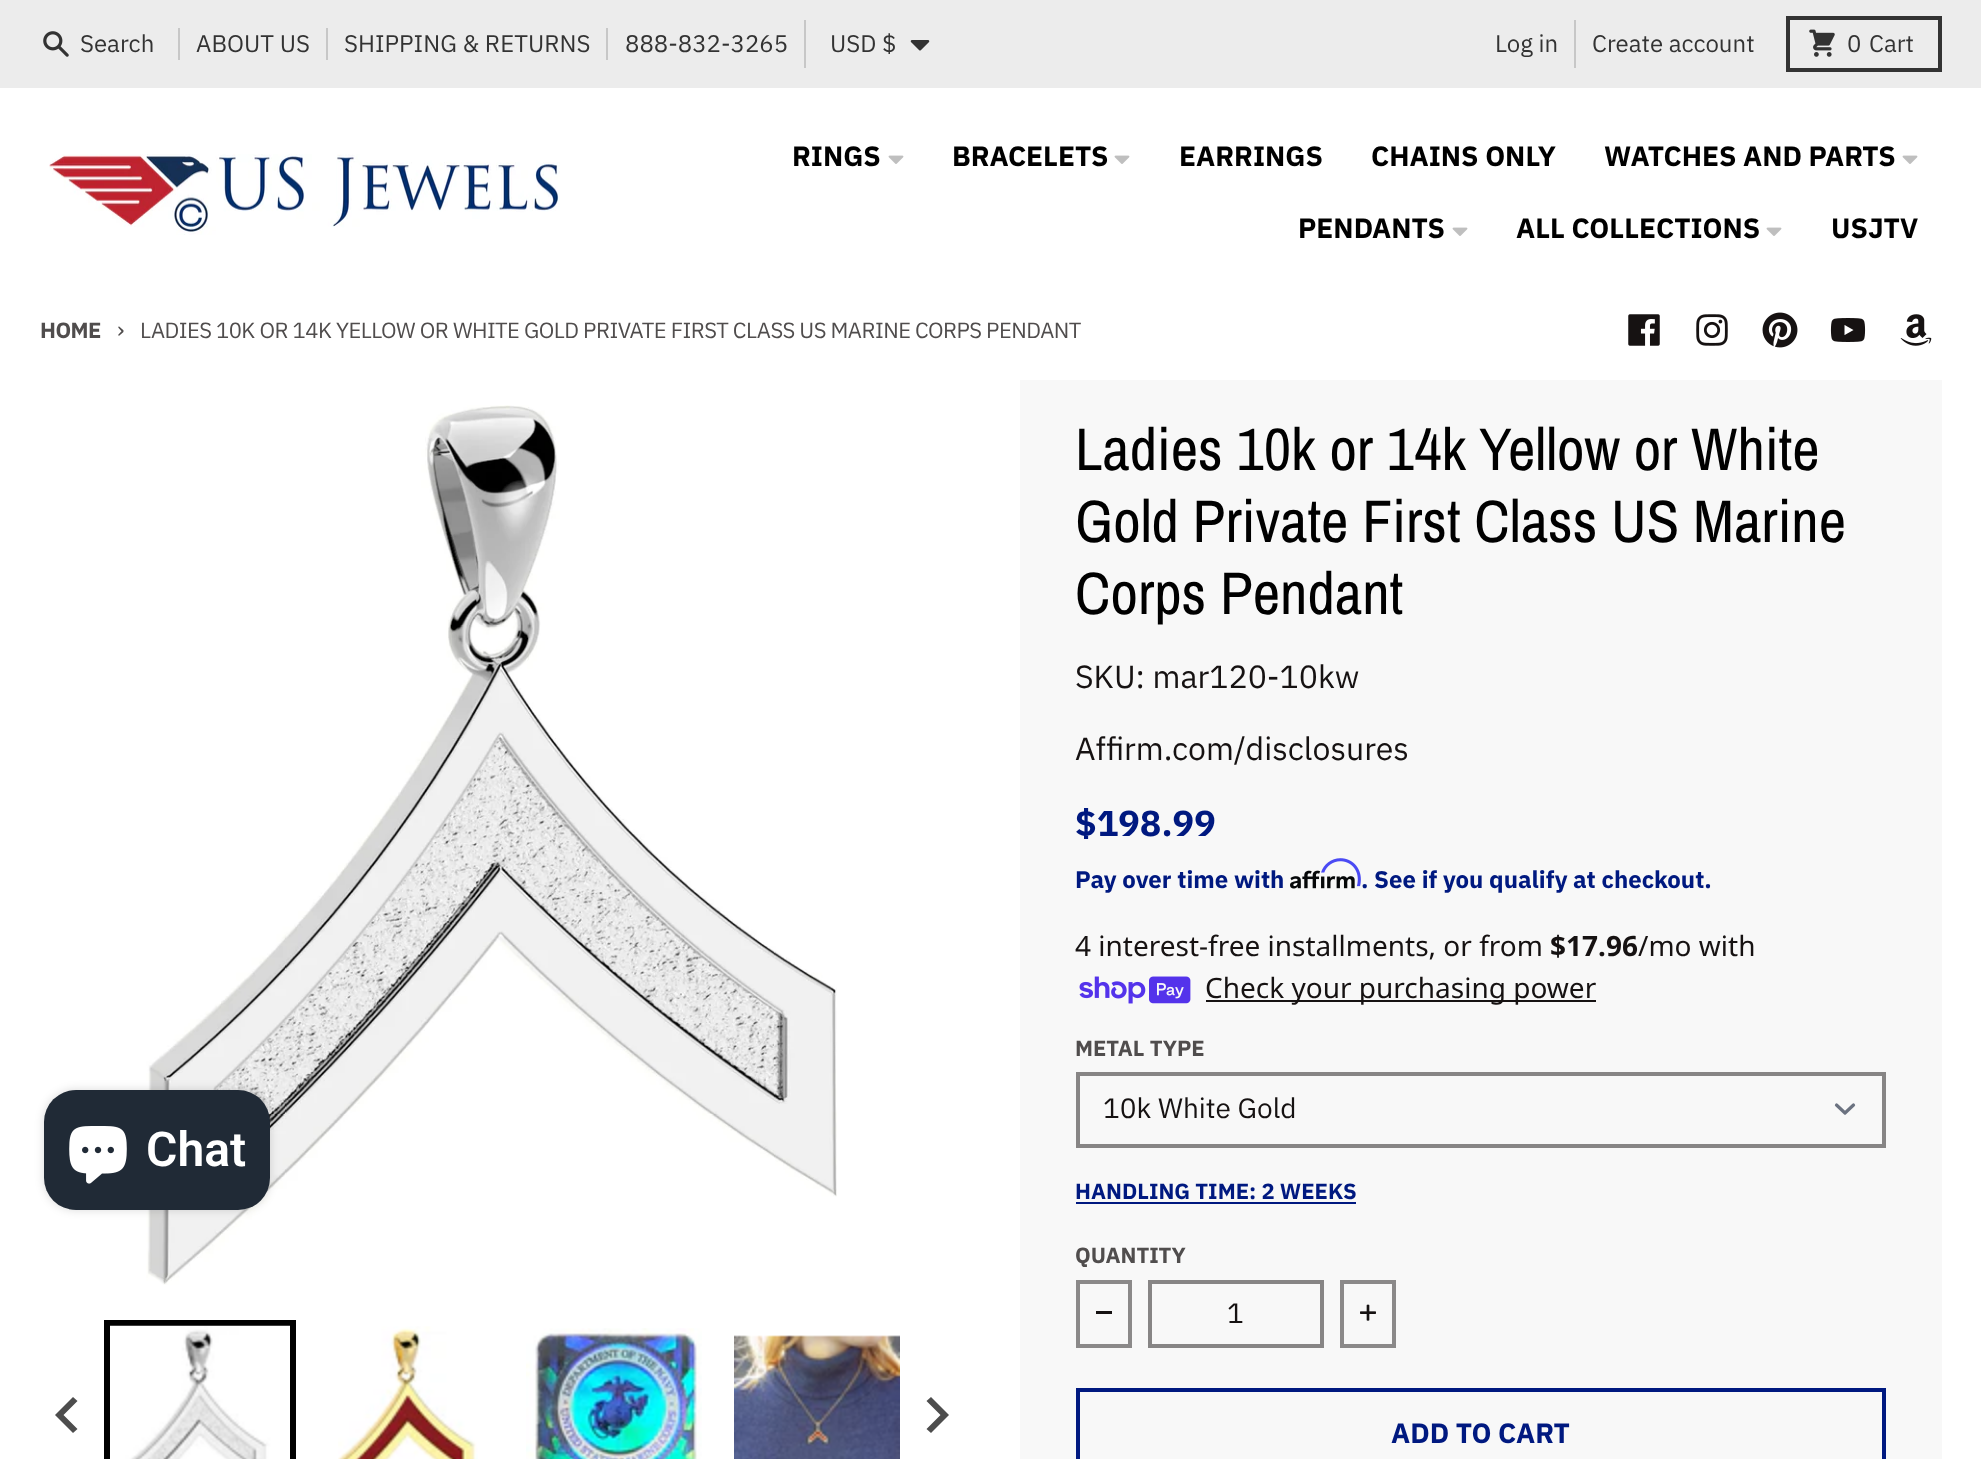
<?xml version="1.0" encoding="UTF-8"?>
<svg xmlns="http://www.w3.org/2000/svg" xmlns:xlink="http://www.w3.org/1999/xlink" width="1981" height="1459">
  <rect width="100%" height="100%" fill="#ececec" />
  <image x="43" y="31" width="26" height="26" xlink:href="image1.png" />
  <rect x="178" y="28" width="2" height="32" fill="#c7c7c7" />
  <rect x="326" y="28" width="2" height="32" fill="#c7c7c7" />
  <rect x="606" y="28" width="2" height="32" fill="#c7c7c7" />
  <rect x="804" y="20" width="2" height="48" fill="#c7c7c7" />
  <image x="910" y="40" width="20" height="11" xlink:href="image2.png" />
  <rect x="1574" y="20" width="2" height="48" fill="#c7c7c7" />
  <rect x="1788" y="18" width="152" height="52" fill="none" stroke="#333333" stroke-width="4" />
  <image x="1809" y="29" width="26" height="28" xlink:href="image3.png" />
  <rect y="88" width="1981" height="1371" fill="#ffffff" />
  <image x="49" y="154" width="511" height="81" xlink:href="image4.png" />
  <image x="888" y="155" width="16" height="9" xlink:href="image5.png" />
  <image x="1114" y="155" width="16" height="9" xlink:href="image5.png" />
  <image x="1902" y="155" width="16" height="9" xlink:href="image5.png" />
  <image x="1452" y="227" width="16" height="9" xlink:href="image5.png" />
  <image x="1766" y="227" width="16" height="9" xlink:href="image5.png" />
  <image x="1628" y="314" width="32" height="32" xlink:href="image6.png" />
  <image x="1696" y="314" width="32" height="32" xlink:href="image7.png" />
  <image x="1762" y="312" width="36" height="36" xlink:href="image8.png" />
  <image x="1830" y="318" width="36" height="24" xlink:href="image9.png" />
  <image x="1900" y="314" width="32" height="32" xlink:href="image10.png" />
  <image x="146" y="405" width="691" height="880" xlink:href="image11.png" />
  <rect x="107" y="1323" width="186" height="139" fill="none" stroke="#000000" stroke-width="6" />
  <image x="110" y="1325" width="180" height="134" xlink:href="image12.png" />
  <image x="338" y="1326" width="140" height="133" xlink:href="image13.png" />
  <image x="526" y="1328" width="176" height="131" xlink:href="image14.png" />
  <image x="734" y="1335" width="166" height="124" xlink:href="image15.png" />
  <path d="M 73 1397 l 4.5 4 l -14 14 l 14 14 l -4.5 4 l -18 -18 z" fill="#4d4d4d" />
  <path d="M 931 1397 l -4.5 4 l 14 14 l -14 14 l 4.5 4 l 18 -18 z" fill="#4d4d4d" />
  <rect x="1020" y="380" width="922" height="1079" fill="#f8f8f8" />
  <image x="1290" y="870" width="65" height="19" xlink:href="image17.png" />
  <image x="1321" y="858" width="40" height="29" xlink:href="image16.png" />
  <image x="1079" y="976" width="112" height="28" xlink:href="image18.png" />
  <rect x="1206" y="1000" width="390" height="2" fill="#161212" />
  <path d="M 1836.5 1105 l 8.5 8 l 8.5 -8" fill="none" stroke="#6b7280" stroke-width="3.2" stroke-linecap="round" stroke-linejoin="round" />
  <rect x="1078" y="1074" width="806" height="72" fill="none" stroke="#878585" stroke-width="4" />
  <rect x="1076" y="1202" width="280" height="2" fill="#001980" />
  <rect x="1078" y="1282" width="52" height="64" fill="none" stroke="#8b8989" stroke-width="4" />
  <rect x="1096" y="1311" width="16" height="3" fill="#161212" />
  <rect x="1150" y="1282" width="172" height="64" fill="none" stroke="#878585" stroke-width="4" />
  <rect x="1342" y="1282" width="52" height="64" fill="none" stroke="#8b8989" stroke-width="4" />
  <image x="1360" y="1304" width="16" height="17" xlink:href="image19.png" />
  <rect x="1078" y="1390" width="806" height="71" fill="none" stroke="#001980" stroke-width="4" />
  <rect x="44" y="1090" width="226" height="120" rx="32" fill="#000000" fill-opacity="0.15" filter="blur(5px)" />
  <rect x="44" y="1090" width="226" height="120" rx="32" fill="#202a36" />
  <image x="69" y="1126" width="58" height="58" xlink:href="image20.png" />
  <text x="80" y="52" style="font-family: IBM Plex Sans; font-size: 24px; fill: #333333">Search</text>
  <text x="196" y="52" style="font-family: IBM Plex Sans; font-size: 24px; fill: #333333">ABOUT US</text>
  <text x="344" y="52" style="font-family: IBM Plex Sans; font-size: 24px; fill: #333333">SHIPPING &amp; RETURNS</text>
  <text x="625" y="52" style="font-family: IBM Plex Sans; font-size: 24px; fill: #333333">888-832-3265</text>
  <text x="830" y="52" style="font-family: IBM Plex Sans; font-size: 24px; fill: #333333">USD $</text>
  <text x="1495" y="52" style="font-family: IBM Plex Sans; font-size: 24px; fill: #333333">Log in</text>
  <text x="1592" y="52" style="font-family: IBM Plex Sans; font-size: 24px; fill: #333333">Create account</text>
  <text x="1847" y="52" style="font-family: IBM Plex Sans; font-size: 24px; fill: #333333">0</text>
  <text x="1869" y="52" style="font-family: IBM Plex Sans; font-size: 24px; fill: #333333">Cart</text>
  <text x="792" y="166" style="font-family: IBM Plex Sans; font-size: 28px; font-weight: bold; fill: #000000">RINGS</text>
  <text x="952" y="166" style="font-family: IBM Plex Sans; font-size: 28px; font-weight: bold; fill: #000000">BRACELETS</text>
  <text x="1179" y="166" style="font-family: IBM Plex Sans; font-size: 28px; font-weight: bold; fill: #000000">EARRINGS</text>
  <text x="1371" y="166" style="font-family: IBM Plex Sans; font-size: 28px; font-weight: bold; fill: #000000">CHAINS ONLY</text>
  <text x="1604" y="166" style="font-family: IBM Plex Sans; font-size: 28px; font-weight: bold; fill: #000000">WATCHES AND PARTS</text>
  <text x="1298" y="238" style="font-family: IBM Plex Sans; font-size: 28px; font-weight: bold; fill: #000000">PENDANTS</text>
  <text x="1516" y="238" style="font-family: IBM Plex Sans; font-size: 28px; font-weight: bold; fill: #000000">ALL COLLECTIONS</text>
  <text x="1831" y="238" style="font-family: IBM Plex Sans; font-size: 28px; font-weight: bold; fill: #000000">USJTV</text>
  <text x="40" y="338" style="font-family: IBM Plex Sans; font-size: 22px; font-weight: bold; letter-spacing: -0.55px; fill: #504d4d">HOME</text>
  <text x="117" y="338" style="font-family: IBM Plex Sans; font-size: 24px; letter-spacing: -0.55px; fill: #504d4d">›</text>
  <text x="140" y="338" style="font-family: IBM Plex Sans; font-size: 22px; letter-spacing: -0.55px; fill: #504d4d">LADIES 10K OR 14K YELLOW OR WHITE GOLD PRIVATE FIRST CLASS US MARINE CORPS PENDANT</text>
  <text x="1075" y="470" style="font-family: Archivo Narrow; font-size: 60px; fill: #000000">Ladies 10k or 14k Yellow or White</text>
  <text x="1075" y="542" style="font-family: Archivo Narrow; font-size: 60px; fill: #000000">Gold Private First Class US Marine</text>
  <text x="1075" y="614" style="font-family: Archivo Narrow; font-size: 60px; fill: #000000">Corps Pendant</text>
  <text x="1075" y="688" style="font-family: IBM Plex Sans; font-size: 32px; fill: #161212">SKU: mar120-10kw</text>
  <text x="1075" y="760" style="font-family: IBM Plex Sans; font-size: 32px; fill: #161212">Affirm.com/disclosures</text>
  <text x="1075" y="836" style="font-family: IBM Plex Sans; font-size: 36px; font-weight: bold; fill: #001980">$198.99</text>
  <text x="1075" y="888" style="font-family: IBM Plex Sans; font-size: 24px; font-weight: bold; fill: #001980">Pay over time with</text>
  <text x="1361" y="888" style="font-family: IBM Plex Sans; font-size: 24px; font-weight: bold; fill: #001980">. See if you qualify at checkout.</text>
  <text x="1075" y="956" style="font-family: Noto Sans; font-size: 28px; fill: #161212">4 interest-free installments, or from</text>
  <text x="1550" y="956" style="font-family: Noto Sans; font-size: 28px; font-weight: bold; fill: #161212">$17.96</text>
  <text x="1638" y="956" style="font-family: Noto Sans; font-size: 28px; fill: #161212">/mo with</text>
  <text x="1205" y="998" style="font-family: Noto Sans; font-size: 28px; fill: #161212">Check your purchasing power</text>
  <text x="1075" y="1056" style="font-family: IBM Plex Sans; font-size: 22px; font-weight: bold; fill: #504d4d">METAL TYPE</text>
  <text x="1103" y="1118" style="font-family: IBM Plex Sans; font-size: 28px; fill: #161212">10k White Gold</text>
  <text x="1075" y="1199" style="font-family: IBM Plex Sans; font-size: 22px; font-weight: bold; fill: #001980">HANDLING TIME: 2 WEEKS</text>
  <text x="1075" y="1263" style="font-family: IBM Plex Sans; font-size: 22px; font-weight: bold; fill: #504d4d">QUANTITY</text>
  <text x="1227" y="1323" style="font-family: IBM Plex Sans; font-size: 28px; fill: #161212">1</text>
  <text x="1391" y="1443" style="font-family: IBM Plex Sans; font-size: 28px; font-weight: bold; fill: #001980">ADD TO CART</text>
  <text x="146" y="1166" style="font-family: Roboto; font-size: 48px; font-weight: 600; fill: #ffffff">Chat</text>
</svg>
